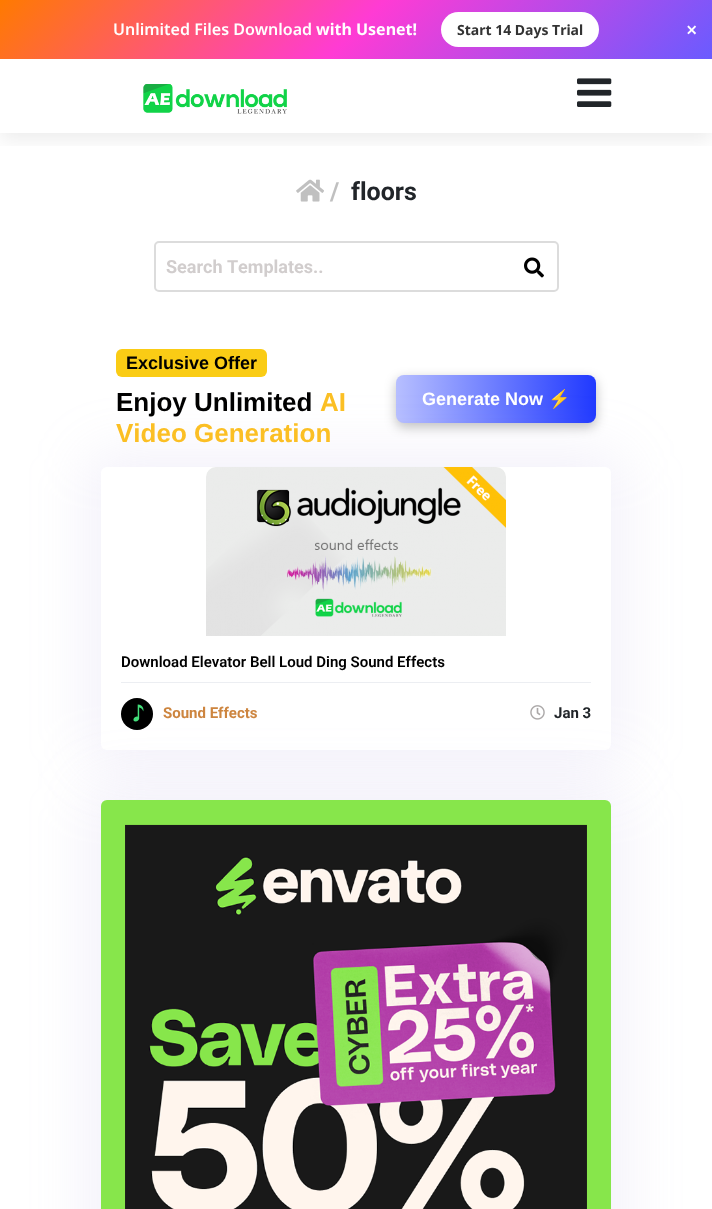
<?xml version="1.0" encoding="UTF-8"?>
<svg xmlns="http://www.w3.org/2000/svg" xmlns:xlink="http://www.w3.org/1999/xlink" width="712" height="1209">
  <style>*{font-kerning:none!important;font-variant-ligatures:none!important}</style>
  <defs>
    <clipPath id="clip1"><rect x="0" y="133" width="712" height="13" /></clipPath>
    <linearGradient id="g1" gradientUnits="userSpaceOnUse" x1="163" y1="-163" x2="549" y2="222"><stop offset="0" stop-color="#ff7a00" /><stop offset="0.5" stop-color="#ff3bd4" /><stop offset="1" stop-color="#6a5bff" /></linearGradient>
    <linearGradient id="g2" gradientUnits="userSpaceOnUse" x1="396" y1="399" x2="596" y2="399"><stop offset="0" stop-color="#b7bfff" /><stop offset="1" stop-color="#2039ff" /></linearGradient>
  </defs>
  <rect width="100%" height="100%" fill="#ffffff" />
  <g clip-path="url(#clip1)">
    <rect y="65" width="712" height="74" fill="#000000" fill-opacity="0.08" filter="blur(10px)" />
  </g>
  <rect width="712" height="59" fill="url(#g1)" />
  <rect x="441" y="12" width="158" height="35" rx="17.5" fill="#ffffff" />
  <image x="143" y="84" width="144" height="30" xlink:href="image1.png" />
  <image x="577" y="78" width="35" height="29" xlink:href="image2.png" />
  <image x="296" y="179" width="28" height="23" xlink:href="image3.png" />
  <rect x="155" y="242" width="403" height="49" rx="4" fill="none" stroke="#dcdcdc" stroke-width="2" />
  <image x="524" y="257" width="20" height="21" xlink:href="image4.png" />
  <rect x="116" y="349" width="151" height="28" rx="6" fill="#facc15" />
  <rect x="396" y="379" width="200" height="48" rx="8" fill="#000000" fill-opacity="0.25" filter="blur(6px)" />
  <rect x="396" y="375" width="200" height="48" rx="8" fill="url(#g2)" />
  <rect x="87" y="453" width="538" height="311" rx="20" fill="#bab3e2" fill-opacity="0.18" filter="blur(28px)" />
  <rect x="101" y="467" width="510" height="283" rx="6" fill="#ffffff" />
  <image x="206" y="467" width="300" height="169" xlink:href="image5.png" />
  <rect x="121" y="682" width="470" height="1" fill="#eceef2" />
  <image x="530" y="705" width="15" height="15" xlink:href="image7.png" />
  <rect x="87" y="786" width="538" height="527" rx="20" fill="#bab3e2" fill-opacity="0.18" filter="blur(28px)" />
  <image x="121" y="698" width="32" height="32" xlink:href="image6.png" />
  <image x="101" y="800" width="510" height="409" xlink:href="image8.png" />
  <text x="113" y="35" style="font-family: Noto Sans; font-size: 16px; font-weight: 600; fill: #ffffff">Unlimited Files Download</text>
  <text x="316" y="35" style="font-family: Noto Sans; font-size: 16px; font-weight: bold; fill: #ffffff">with Usenet!</text>
  <text x="457" y="35" style="font-family: Noto Sans; font-size: 14px; font-weight: bold; fill: #333333">Start 14 Days Trial</text>
  <text x="686" y="37" style="font-family: Noto Sans; font-size: 20px; font-weight: 600; fill: #ffffff">×</text>
  <text x="330" y="200" style="font-family: Roboto; font-size: 25px; font-weight: bold; fill: #c0c0c0">/</text>
  <text x="351" y="200" style="font-family: Roboto; font-size: 25px; font-weight: bold; fill: #212529">floors</text>
  <text x="166" y="273" style="font-family: Roboto; font-size: 18px; font-weight: bold; fill: #d1cdcd">Search Templates..</text>
  <text x="126" y="369" style="font-family: Liberation Sans; font-size: 18px; font-weight: bold; fill: #000000">Exclusive Offer</text>
  <text x="116" y="411" style="font-family: Liberation Sans; font-size: 26px; font-weight: bold; fill: #000000">Enjoy Unlimited</text>
  <text x="320" y="411" style="font-family: Liberation Sans; font-size: 26px; font-weight: bold; fill: #fbbf24">AI</text>
  <text x="116" y="442" style="font-family: Liberation Sans; font-size: 26px; font-weight: bold; fill: #fbbf24">Video Generation</text>
  <text x="422" y="405" style="font-family: Liberation Sans; font-size: 18px; font-weight: bold; fill: #ffffff">Generate Now</text>
  <text x="548" y="405" style="font-family: Noto Color Emoji; font-size: 18px; font-weight: bold; fill: #ffffff">⚡</text>
  <text x="121" y="667" style="font-family: Roboto; font-size: 15px; font-weight: 600; fill: #000000">Download Elevator Bell Loud Ding Sound Effects</text>
  <text x="163" y="718" style="font-family: Roboto; font-size: 15px; font-weight: bold; fill: #cd853f">Sound Effects</text>
  <text x="554" y="718" style="font-family: Roboto; font-size: 15px; font-weight: bold; fill: #212529">Jan 3</text>
</svg>
